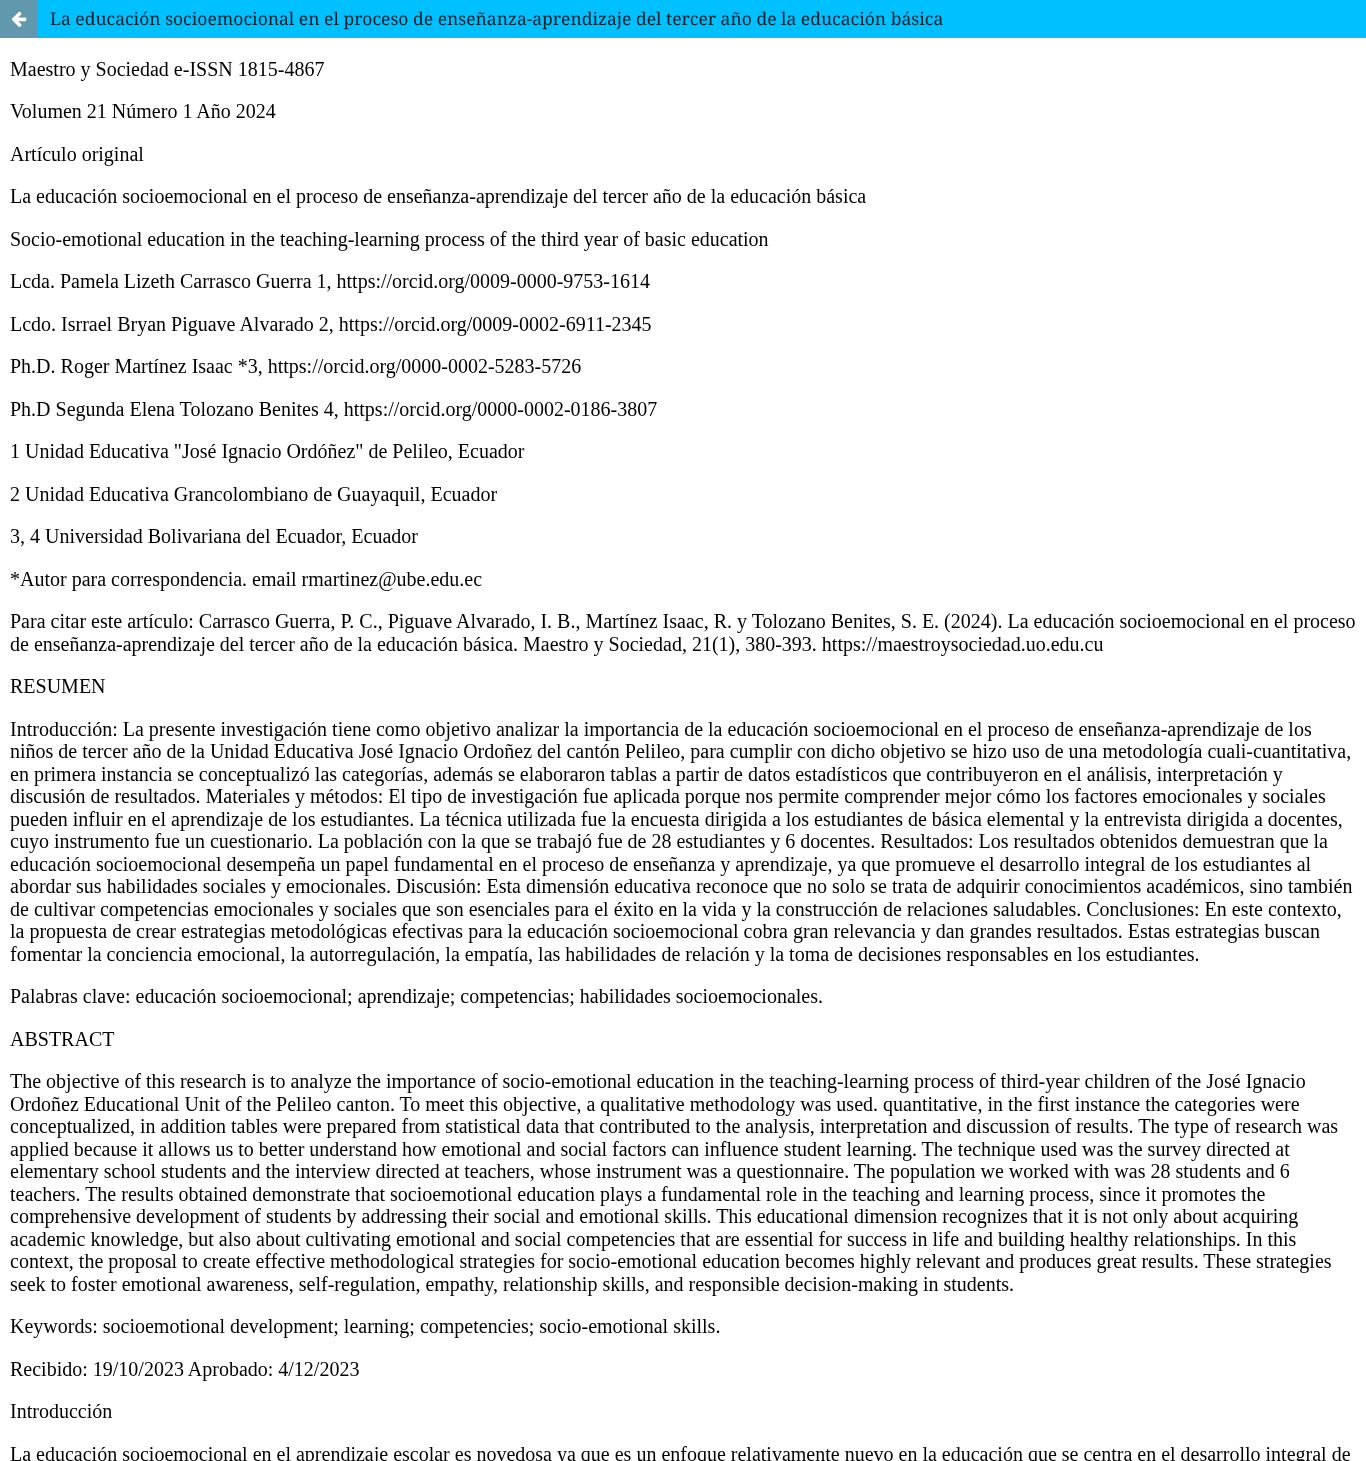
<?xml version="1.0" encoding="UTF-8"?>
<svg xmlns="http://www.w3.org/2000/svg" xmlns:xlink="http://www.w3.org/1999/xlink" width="1366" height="1461">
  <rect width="100%" height="100%" fill="#ffffff" />
  <rect x="38" width="1328" height="38" fill="#00c0ff" />
  <rect width="38" height="38" fill="#6298ae" />
  <image x="11" y="11" width="16" height="16" xlink:href="image1.png" />
  <image x="10" y="62" width="1345" height="1399" xlink:href="image2.png" />
  <text x="50" y="25" style="font-family: Noto Serif; font-size: 17.5px; fill: #001f29">La educación socioemocional en el proceso de enseñanza-aprendizaje del tercer año de la educación básica</text>
</svg>
